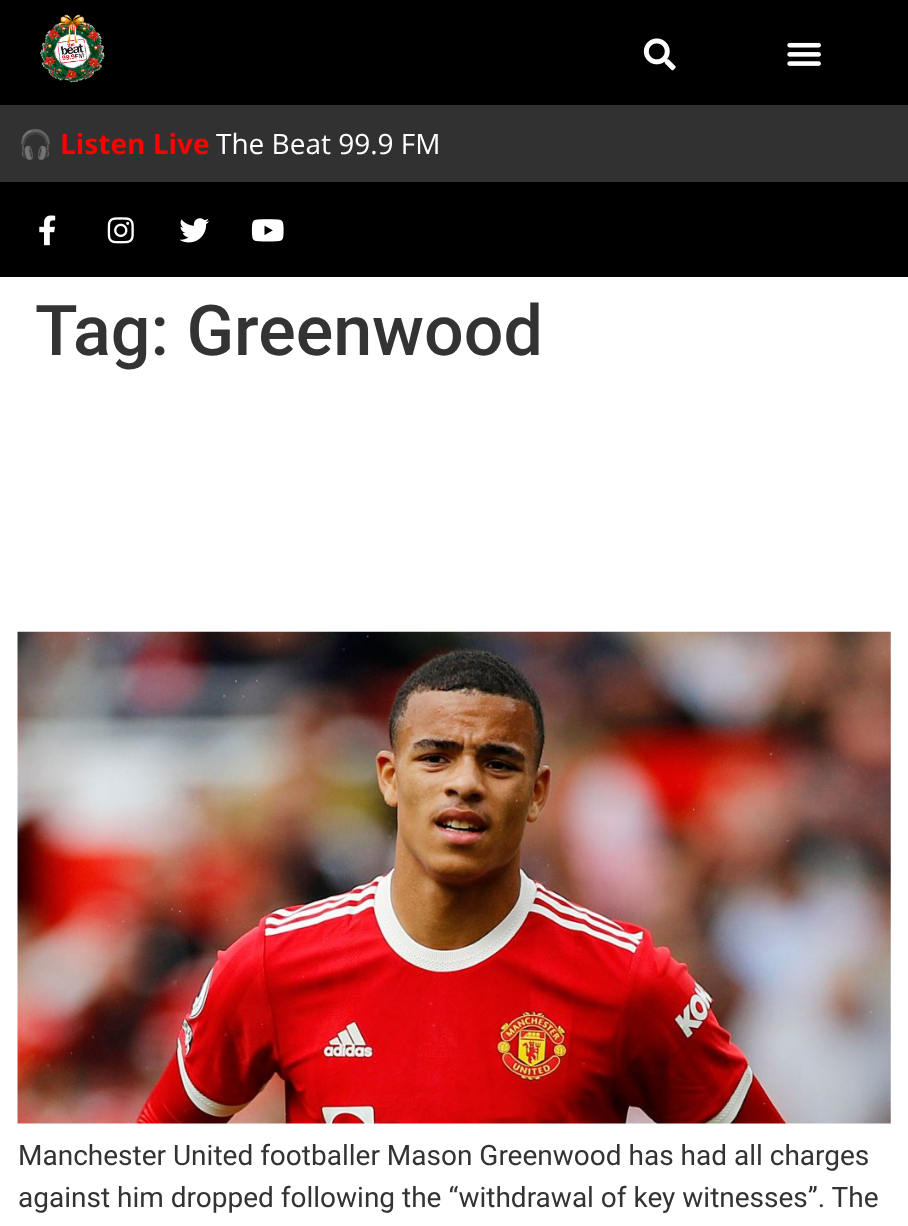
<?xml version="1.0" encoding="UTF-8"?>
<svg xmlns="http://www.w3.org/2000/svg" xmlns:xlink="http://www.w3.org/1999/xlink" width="908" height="1226">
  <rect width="100%" height="100%" fill="#ffffff" />
  <rect width="908" height="105" fill="#000000" />
  <image x="39" y="14" width="66" height="69" xlink:href="image1.png" />
  <image x="643" y="38" width="33" height="33" xlink:href="image2.png" />
  <image x="787" y="42" width="34" height="24" xlink:href="image3.png" />
  <rect y="182" width="908" height="95" fill="#000000" />
  <rect y="105" width="908" height="77" fill="#313131" />
  <image x="39" y="215" width="17" height="31" xlink:href="image4.png" />
  <image x="107" y="217" width="27" height="27" xlink:href="image5.png" />
  <image x="179" y="218" width="30" height="25" xlink:href="image6.png" />
  <image x="251" y="219" width="33" height="23" xlink:href="image7.png" />
  <image x="17" y="631" width="874" height="493" xlink:href="image8.png" />
  <text x="18" y="154" style="font-family: Noto Color Emoji; font-size: 28px; font-weight: bold; fill: #ffffff">🎧</text>
  <text x="60" y="154" style="font-family: Open Sans; font-size: 28px; font-weight: bold; fill: #ff0000">Listen Live</text>
  <text x="216" y="154" style="font-family: Open Sans; font-size: 28px; fill: #ffffff">The Beat 99.9 FM</text>
  <text x="35" y="355" style="font-family: Roboto; font-size: 70px; font-weight: 500; fill: #333333">Tag: Greenwood</text>
  <text x="18" y="1165" style="font-family: Roboto; font-size: 28px; fill: #333333">Manchester United footballer Mason Greenwood has had all charges</text>
  <text x="18" y="1207" style="font-family: Roboto; font-size: 28px; fill: #333333">against him dropped following the “withdrawal of key witnesses”. The</text>
</svg>
